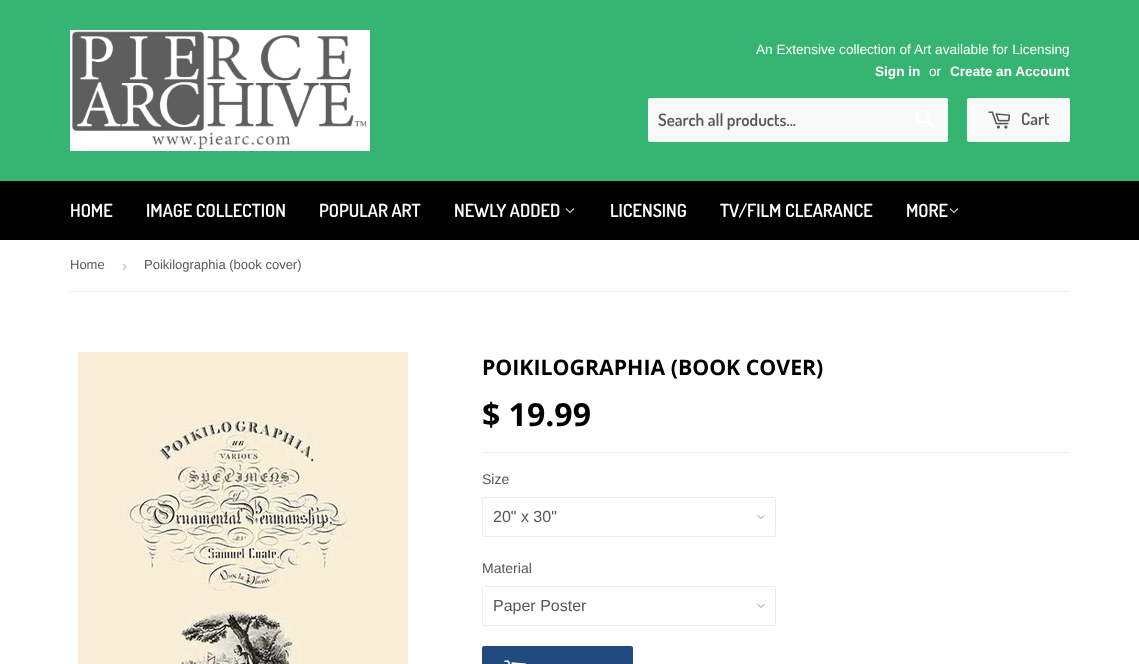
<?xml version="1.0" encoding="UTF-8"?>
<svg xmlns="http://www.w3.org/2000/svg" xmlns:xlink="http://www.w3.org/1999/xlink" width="1139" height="664">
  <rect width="100%" height="100%" fill="#ffffff" />
  <rect width="1139" height="181" fill="#36b471" />
  <image x="70" y="30" width="300" height="121" xlink:href="image1.png" />
  <rect x="648" y="98" width="300" height="44" rx="2" fill="#f9f9f9" />
  <image x="916" y="110" width="18" height="17" xlink:href="image2.png" />
  <rect x="967" y="98" width="103" height="44" rx="2" fill="#f9f9f9" />
  <image x="988" y="111" width="23" height="18" xlink:href="image3.png" />
  <rect y="181" width="1139" height="59" fill="#000000" />
  <image x="565" y="208" width="10" height="5" xlink:href="image4.png" />
  <image x="949" y="208" width="10" height="5" xlink:href="image4.png" />
  <rect x="70" y="291" width="1000" height="1" fill="#ececec" />
  <image x="78" y="352" width="330" height="312" xlink:href="image5.png" />
  <rect x="482" y="452" width="588" height="1" fill="#ececec" />
  <image x="757" y="515" width="8" height="4" xlink:href="image6.png" />
  <rect x="482.5" y="497.5" width="293" height="39" rx="1.5" fill="none" stroke="#ececec" />
  <image x="757" y="604" width="8" height="4" xlink:href="image6.png" />
  <rect x="482.5" y="586.5" width="293" height="39" rx="1.5" fill="none" stroke="#ececec" />
  <rect x="482" y="646" width="151" height="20" rx="2" fill="#204a80" />
  <image x="504" y="660" width="22" height="4" xlink:href="image7.png" />
  <text x="756" y="54" style="font-family: Liberation Sans; font-size: 13.6px; fill: #ffffff">An Extensive collection of Art available for Licensing</text>
  <text x="875" y="76" style="font-family: Liberation Sans; font-size: 13.6px; font-weight: bold; fill: #ffffff">Sign in</text>
  <text x="929" y="76" style="font-family: Liberation Sans; font-size: 13.6px; fill: #ffffff">or</text>
  <text x="950" y="76" style="font-family: Liberation Sans; font-size: 13.6px; font-weight: bold; fill: #ffffff">Create an Account</text>
  <text x="658" y="126" style="font-family: Dosis; font-size: 17px; font-weight: 600; fill: #585858">Search all products...</text>
  <text x="1021" y="125" style="font-family: Dosis; font-size: 17px; font-weight: 600; fill: #585858">Cart</text>
  <text x="70" y="217" style="font-family: Dosis; font-size: 18px; font-weight: 600; fill: #ffffff">HOME</text>
  <text x="146" y="217" style="font-family: Dosis; font-size: 18px; font-weight: 600; fill: #ffffff">IMAGE COLLECTION</text>
  <text x="319" y="217" style="font-family: Dosis; font-size: 18px; font-weight: 600; fill: #ffffff">POPULAR ART</text>
  <text x="454" y="217" style="font-family: Dosis; font-size: 18px; font-weight: 600; fill: #ffffff">NEWLY ADDED</text>
  <text x="610" y="217" style="font-family: Dosis; font-size: 18px; font-weight: 600; fill: #ffffff">LICENSING</text>
  <text x="720" y="217" style="font-family: Dosis; font-size: 18px; font-weight: 600; fill: #ffffff">TV/FILM CLEARANCE</text>
  <text x="906" y="217" style="font-family: Dosis; font-size: 18px; font-weight: 600; fill: #ffffff">MORE</text>
  <text x="70" y="269" style="font-family: Liberation Sans; font-size: 13px; fill: #585858">Home</text>
  <text x="122" y="271" style="font-family: Liberation Sans; font-size: 15px; fill: #bbbbbb">›</text>
  <text x="144" y="269" style="font-family: Liberation Sans; font-size: 13px; fill: #585858">Poikilographia (book cover)</text>
  <text x="482" y="375" style="font-family: Open Sans; font-size: 21.3px; font-weight: bold; fill: #000000">POIKILOGRAPHIA (BOOK COVER)</text>
  <text x="482" y="426" style="font-family: Open Sans; font-size: 32px; font-weight: bold; fill: #000000">$ 19.99</text>
  <text x="482" y="484" style="font-family: Liberation Sans; font-size: 14px; fill: #585858">Size</text>
  <text x="493" y="522" style="font-family: Liberation Sans; font-size: 16px; fill: #585858">20" x 30"</text>
  <text x="482" y="573" style="font-family: Liberation Sans; font-size: 14px; fill: #585858">Material</text>
  <text x="493" y="611" style="font-family: Liberation Sans; font-size: 16px; fill: #585858">Paper Poster</text>
</svg>
